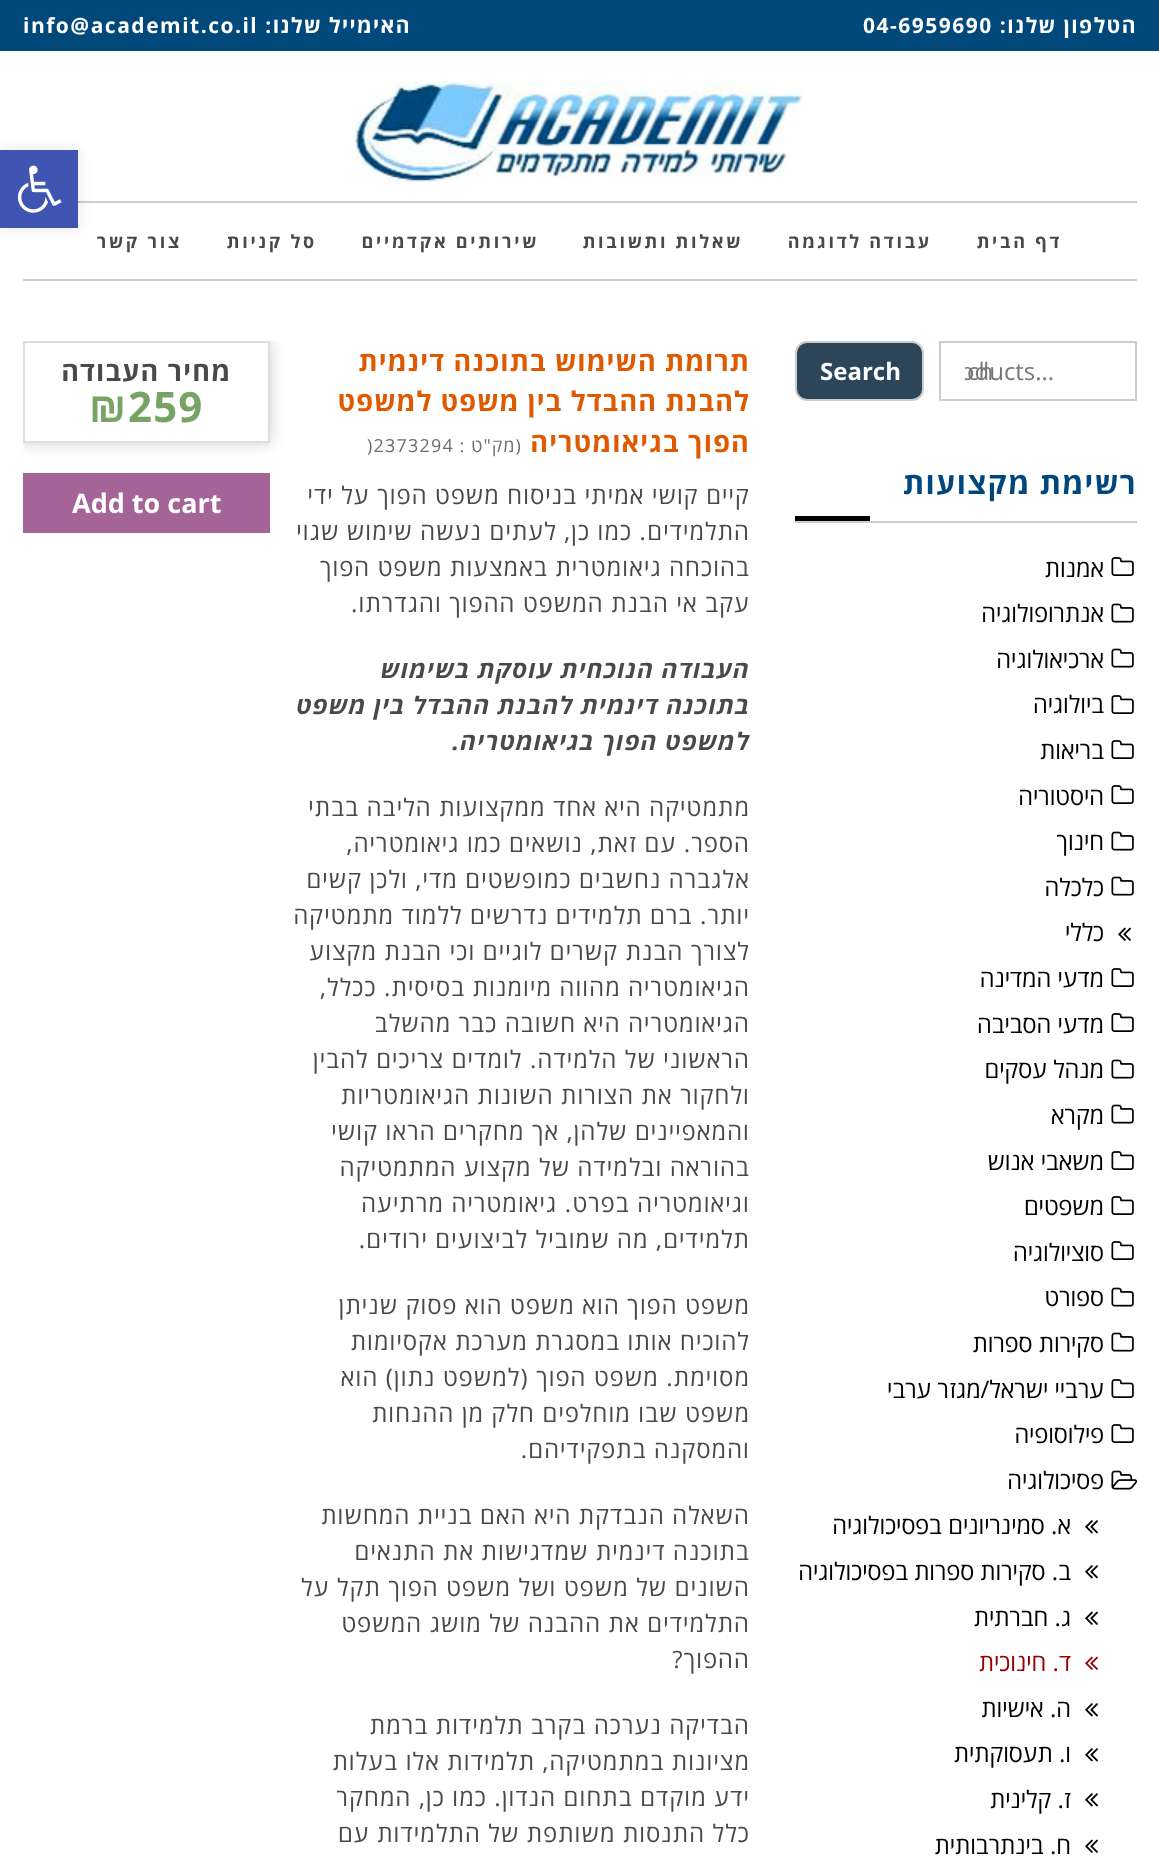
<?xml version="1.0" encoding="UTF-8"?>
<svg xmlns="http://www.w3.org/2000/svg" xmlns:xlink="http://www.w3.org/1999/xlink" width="1159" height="1873">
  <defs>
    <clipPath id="clip1"><rect x="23" y="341" width="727" height="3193" /></clipPath>
    <clipPath id="clip2"><path d="M 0 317 h 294 v 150 h -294 z m 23 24 h 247 v 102 h -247 z" clip-rule="evenodd" /></clipPath>
    <clipPath id="clip3"><rect x="965" y="354" width="153" height="33" /></clipPath>
  </defs>
  <rect width="100%" height="100%" fill="#ffffff" />
  <rect width="1159" height="51" fill="#01497b" />
  <image x="353" y="81" width="450" height="105" xlink:href="image1.png" />
  <rect x="78" y="201" width="1059" height="2" fill="#cdcdcd" />
  <rect x="23" y="279" width="1114" height="2" fill="#cdcdcd" />
  <rect x="940" y="342" width="196" height="58" fill="none" stroke="#cccccc" stroke-width="2" />
  <rect x="796" y="342" width="127" height="58" rx="11" fill="#2c4559" stroke="#cccccc" stroke-width="2" />
  <rect x="795" y="521" width="342" height="2" fill="#cdcdcd" />
  <rect x="795" y="516" width="75" height="5" fill="#000000" />
  <image x="1111" y="557" width="23" height="19" xlink:href="image2.png" />
  <image x="1111" y="603" width="23" height="20" xlink:href="image3.png" />
  <image x="1111" y="648" width="23" height="20" xlink:href="image3.png" />
  <image x="1111" y="695" width="23" height="19" xlink:href="image2.png" />
  <image x="1111" y="740" width="23" height="19" xlink:href="image2.png" />
  <image x="1111" y="785" width="23" height="19" xlink:href="image2.png" />
  <image x="1111" y="831" width="23" height="20" xlink:href="image3.png" />
  <image x="1111" y="876" width="23" height="20" xlink:href="image3.png" />
  <image x="1118" y="927" width="13" height="14" xlink:href="image4.png" />
  <image x="1111" y="968" width="23" height="19" xlink:href="image2.png" />
  <image x="1111" y="1013" width="23" height="19" xlink:href="image2.png" />
  <image x="1111" y="1059" width="23" height="20" xlink:href="image3.png" />
  <image x="1111" y="1104" width="23" height="20" xlink:href="image3.png" />
  <image x="1111" y="1151" width="23" height="19" xlink:href="image2.png" />
  <image x="1111" y="1196" width="23" height="19" xlink:href="image2.png" />
  <image x="1111" y="1241" width="23" height="19" xlink:href="image2.png" />
  <image x="1111" y="1287" width="23" height="20" xlink:href="image3.png" />
  <image x="1111" y="1332" width="23" height="20" xlink:href="image3.png" />
  <image x="1111" y="1379" width="23" height="19" xlink:href="image2.png" />
  <image x="1111" y="1424" width="23" height="19" xlink:href="image2.png" />
  <image x="1111" y="1470" width="26" height="20" xlink:href="image5.png" />
  <image x="1085" y="1520" width="13" height="14" xlink:href="image6.png" />
  <image x="1085" y="1565" width="13" height="14" xlink:href="image6.png" />
  <image x="1085" y="1611" width="13" height="14" xlink:href="image4.png" />
  <image x="1085" y="1656" width="13" height="14" xlink:href="image7.png" />
  <image x="1085" y="1703" width="13" height="14" xlink:href="image6.png" />
  <image x="1085" y="1748" width="13" height="14" xlink:href="image6.png" />
  <image x="1085" y="1793" width="13" height="14" xlink:href="image6.png" />
  <image x="1085" y="1839" width="13" height="14" xlink:href="image4.png" />
  <g clip-path="url(#clip1)">
    <g clip-path="url(#clip2)">
      <rect x="23" y="341" width="247" height="102" fill="#000000" fill-opacity="0.2" filter="blur(7.5px)" />
    </g>
  </g>
  <rect x="24" y="342" width="245" height="100" fill="none" stroke="#dddddd" stroke-width="2" />
  <rect x="23" y="473" width="247" height="60" fill="#a46497" />
  <rect y="150" width="78" height="78" fill="#000000" fill-opacity="0.1" filter="blur(7.5px)" />
  <rect y="150" width="78" height="78" fill="#4054b2" />
  <image x="17" y="165" width="45" height="48" xlink:href="image8.png" />
  <text x="1137" y="33" style="font-family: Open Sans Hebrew; font-size: 21px; font-weight: bold; letter-spacing: 1.5px; direction: rtl; fill: #ffffff">הטלפון שלנו:</text>
  <text x="863" y="33" style="font-family: Open Sans Hebrew; font-size: 21px; font-weight: bold; letter-spacing: 1.5px; fill: #ffffff">04-6959690</text>
  <text x="411" y="33" style="font-family: Open Sans Hebrew; font-size: 21px; font-weight: bold; letter-spacing: 1.5px; direction: rtl; fill: #ffffff">האימייל שלנו:</text>
  <text x="23" y="33" style="font-family: Open Sans Hebrew; font-size: 21px; font-weight: bold; letter-spacing: 1.5px; fill: #ffffff">info@academit.co.il</text>
  <text x="1062" y="248" style="font-family: Open Sans Hebrew; font-size: 18px; font-weight: bold; letter-spacing: 2.75px; direction: rtl; fill: #494949">דף הבית</text>
  <text x="932" y="248" style="font-family: Open Sans Hebrew; font-size: 18px; font-weight: bold; letter-spacing: 2.75px; direction: rtl; fill: #494949">עבודה לדוגמה</text>
  <text x="743" y="248" style="font-family: Open Sans Hebrew; font-size: 18px; font-weight: bold; letter-spacing: 2.75px; direction: rtl; fill: #494949">שאלות ותשובות</text>
  <text x="539" y="248" style="font-family: Open Sans Hebrew; font-size: 18px; font-weight: bold; letter-spacing: 2.75px; direction: rtl; fill: #494949">שירותים אקדמיים</text>
  <text x="317" y="248" style="font-family: Open Sans Hebrew; font-size: 18px; font-weight: bold; letter-spacing: 2.75px; direction: rtl; fill: #494949">סל קניות</text>
  <text x="182" y="248" style="font-family: Open Sans Hebrew; font-size: 18px; font-weight: bold; letter-spacing: 2.75px; direction: rtl; fill: #494949">צור קשר</text>
  <text x="967" y="380" style="font-family: Open Sans Hebrew; font-size: 24px; fill: #757575">ch</text>
  <g clip-path="url(#clip3)">
    <text x="960" y="380" style="font-family: Open Sans Hebrew; font-size: 24px; fill: #757575">oducts…</text>
  </g>
  <text x="820" y="380" style="font-family: Open Sans Hebrew; font-size: 24px; font-weight: bold; fill: #ffffff">Search</text>
  <text x="1137" y="494" style="font-family: Open Sans Hebrew; font-size: 30px; font-weight: bold; letter-spacing: 1.5px; direction: rtl; fill: #00477d">רשימת מקצועות</text>
  <text x="1104" y="577" style="font-family: Open Sans Hebrew; font-size: 24px; direction: rtl; fill: #000000">אמנות</text>
  <text x="1104" y="622" style="font-family: Open Sans Hebrew; font-size: 24px; direction: rtl; fill: #000000">אנתרופולוגיה</text>
  <text x="1104" y="668" style="font-family: Open Sans Hebrew; font-size: 24px; direction: rtl; fill: #000000">ארכיאולוגיה</text>
  <text x="1104" y="713" style="font-family: Open Sans Hebrew; font-size: 24px; direction: rtl; fill: #000000">ביולוגיה</text>
  <text x="1104" y="759" style="font-family: Open Sans Hebrew; font-size: 24px; direction: rtl; fill: #000000">בריאות</text>
  <text x="1104" y="805" style="font-family: Open Sans Hebrew; font-size: 24px; direction: rtl; fill: #000000">היסטוריה</text>
  <text x="1104" y="850" style="font-family: Open Sans Hebrew; font-size: 24px; direction: rtl; fill: #000000">חינוך</text>
  <text x="1104" y="896" style="font-family: Open Sans Hebrew; font-size: 24px; direction: rtl; fill: #000000">כלכלה</text>
  <text x="1104" y="941" style="font-family: Open Sans Hebrew; font-size: 24px; direction: rtl; fill: #000000">כללי</text>
  <text x="1104" y="987" style="font-family: Open Sans Hebrew; font-size: 24px; direction: rtl; fill: #000000">מדעי המדינה</text>
  <text x="1104" y="1033" style="font-family: Open Sans Hebrew; font-size: 24px; direction: rtl; fill: #000000">מדעי הסביבה</text>
  <text x="1104" y="1078" style="font-family: Open Sans Hebrew; font-size: 24px; direction: rtl; fill: #000000">מנהל עסקים</text>
  <text x="1104" y="1124" style="font-family: Open Sans Hebrew; font-size: 24px; direction: rtl; fill: #000000">מקרא</text>
  <text x="1104" y="1170" style="font-family: Open Sans Hebrew; font-size: 24px; direction: rtl; fill: #000000">משאבי אנוש</text>
  <text x="1104" y="1215" style="font-family: Open Sans Hebrew; font-size: 24px; direction: rtl; fill: #000000">משפטים</text>
  <text x="1104" y="1261" style="font-family: Open Sans Hebrew; font-size: 24px; direction: rtl; fill: #000000">סוציולוגיה</text>
  <text x="1104" y="1306" style="font-family: Open Sans Hebrew; font-size: 24px; direction: rtl; fill: #000000">ספורט</text>
  <text x="1104" y="1352" style="font-family: Open Sans Hebrew; font-size: 24px; direction: rtl; fill: #000000">סקירות ספרות</text>
  <text x="1104" y="1398" style="font-family: Open Sans Hebrew; font-size: 24px; direction: rtl; fill: #000000">ערביי ישראל/מגזר ערבי</text>
  <text x="1104" y="1443" style="font-family: Open Sans Hebrew; font-size: 24px; direction: rtl; fill: #000000">פילוסופיה</text>
  <text x="1104" y="1489" style="font-family: Open Sans Hebrew; font-size: 24px; direction: rtl; fill: #000000">פסיכולוגיה</text>
  <text x="1071" y="1534" style="font-family: Open Sans Hebrew; font-size: 24px; direction: rtl; fill: #000000">א. סמינריונים בפסיכולוגיה</text>
  <text x="1071" y="1580" style="font-family: Open Sans Hebrew; font-size: 24px; direction: rtl; fill: #000000">ב. סקירות ספרות בפסיכולוגיה</text>
  <text x="1071" y="1626" style="font-family: Open Sans Hebrew; font-size: 24px; direction: rtl; fill: #000000">ג. חברתית</text>
  <text x="1071" y="1671" style="font-family: Open Sans Hebrew; font-size: 24px; direction: rtl; fill: #990000">ד. חינוכית</text>
  <text x="1071" y="1717" style="font-family: Open Sans Hebrew; font-size: 24px; direction: rtl; fill: #000000">ה. אישיות</text>
  <text x="1071" y="1762" style="font-family: Open Sans Hebrew; font-size: 24px; direction: rtl; fill: #000000">ו. תעסוקתית</text>
  <text x="1071" y="1808" style="font-family: Open Sans Hebrew; font-size: 24px; direction: rtl; fill: #000000">ז. קלינית</text>
  <text x="1071" y="1854" style="font-family: Open Sans Hebrew; font-size: 24px; direction: rtl; fill: #000000">ח. בינתרבותית</text>
  <text x="750" y="371" style="font-family: Open Sans Hebrew; font-size: 27px; font-weight: bold; letter-spacing: 1.2px; direction: rtl; fill: #de5900">תרומת השימוש בתוכנה דינמית</text>
  <text x="750" y="411" style="font-family: Open Sans Hebrew; font-size: 27px; font-weight: bold; letter-spacing: 1.2px; direction: rtl; fill: #de5900">להבנת ההבדל בין משפט למשפט</text>
  <text x="750" y="452" style="font-family: Open Sans Hebrew; font-size: 27px; font-weight: bold; letter-spacing: 1.2px; direction: rtl; fill: #de5900">הפוך בגיאומטריה</text>
  <text x="522" y="452" style="font-family: Open Sans Hebrew; font-size: 18px; letter-spacing: 1.2px; direction: rtl; fill: #6d6d6d">(מק"ט :</text>
  <text x="367" y="452" style="font-family: Open Sans Hebrew; font-size: 18px; letter-spacing: 1.2px; fill: #6d6d6d">)2373294</text>
  <text x="750" y="504" style="font-family: Open Sans Hebrew; font-size: 24px; letter-spacing: 1.2px; direction: rtl; fill: #494949">קיים קושי אמיתי בניסוח משפט הפוך על ידי</text>
  <text x="750" y="540" style="font-family: Open Sans Hebrew; font-size: 24px; letter-spacing: 1.2px; direction: rtl; fill: #494949">התלמידים. כמו כן, לעתים נעשה שימוש שגוי</text>
  <text x="750" y="576" style="font-family: Open Sans Hebrew; font-size: 24px; letter-spacing: 1.2px; direction: rtl; fill: #494949">בהוכחה גיאומטרית באמצעות משפט הפוך</text>
  <text x="750" y="612" style="font-family: Open Sans Hebrew; font-size: 24px; letter-spacing: 1.2px; direction: rtl; fill: #494949">עקב אי הבנת המשפט ההפוך והגדרתו.</text>
  <text x="750" y="678" style="font-family: Open Sans Hebrew; font-size: 24px; font-weight: bold; font-style: italic; letter-spacing: 1.2px; direction: rtl; fill: #494949">העבודה הנוכחית עוסקת בשימוש</text>
  <text x="750" y="714" style="font-family: Open Sans Hebrew; font-size: 24px; font-weight: bold; font-style: italic; letter-spacing: 1.2px; direction: rtl; fill: #494949">בתוכנה דינמית להבנת ההבדל בין משפט</text>
  <text x="750" y="750" style="font-family: Open Sans Hebrew; font-size: 24px; font-weight: bold; font-style: italic; letter-spacing: 1.2px; direction: rtl; fill: #494949">למשפט הפוך בגיאומטריה.</text>
  <text x="750" y="816" style="font-family: Open Sans Hebrew; font-size: 24px; letter-spacing: 1.2px; direction: rtl; fill: #494949">מתמטיקה היא אחד ממקצועות הליבה בבתי</text>
  <text x="750" y="852" style="font-family: Open Sans Hebrew; font-size: 24px; letter-spacing: 1.2px; direction: rtl; fill: #494949">הספר. עם זאת, נושאים כמו גיאומטריה,</text>
  <text x="750" y="888" style="font-family: Open Sans Hebrew; font-size: 24px; letter-spacing: 1.2px; direction: rtl; fill: #494949">אלגברה נחשבים כמופשטים מדי, ולכן קשים</text>
  <text x="750" y="924" style="font-family: Open Sans Hebrew; font-size: 24px; letter-spacing: 1.2px; direction: rtl; fill: #494949">יותר. ברם תלמידים נדרשים ללמוד מתמטיקה</text>
  <text x="750" y="960" style="font-family: Open Sans Hebrew; font-size: 24px; letter-spacing: 1.2px; direction: rtl; fill: #494949">לצורך הבנת קשרים לוגיים וכי הבנת מקצוע</text>
  <text x="750" y="996" style="font-family: Open Sans Hebrew; font-size: 24px; letter-spacing: 1.2px; direction: rtl; fill: #494949">הגיאומטריה מהווה מיומנות בסיסית. ככלל,</text>
  <text x="750" y="1032" style="font-family: Open Sans Hebrew; font-size: 24px; letter-spacing: 1.2px; direction: rtl; fill: #494949">הגיאומטריה היא חשובה כבר מהשלב</text>
  <text x="750" y="1068" style="font-family: Open Sans Hebrew; font-size: 24px; letter-spacing: 1.2px; direction: rtl; fill: #494949">הראשוני של הלמידה. לומדים צריכים להבין</text>
  <text x="750" y="1104" style="font-family: Open Sans Hebrew; font-size: 24px; letter-spacing: 1.2px; direction: rtl; fill: #494949">ולחקור את הצורות השונות הגיאומטריות</text>
  <text x="750" y="1140" style="font-family: Open Sans Hebrew; font-size: 24px; letter-spacing: 1.2px; direction: rtl; fill: #494949">והמאפיינים שלהן, אך מחקרים הראו קושי</text>
  <text x="750" y="1176" style="font-family: Open Sans Hebrew; font-size: 24px; letter-spacing: 1.2px; direction: rtl; fill: #494949">בהוראה ובלמידה של מקצוע המתמטיקה</text>
  <text x="750" y="1212" style="font-family: Open Sans Hebrew; font-size: 24px; letter-spacing: 1.2px; direction: rtl; fill: #494949">וגיאומטריה בפרט. גיאומטריה מרתיעה</text>
  <text x="750" y="1248" style="font-family: Open Sans Hebrew; font-size: 24px; letter-spacing: 1.2px; direction: rtl; fill: #494949">תלמידים, מה שמוביל לביצועים ירודים.</text>
  <text x="750" y="1314" style="font-family: Open Sans Hebrew; font-size: 24px; letter-spacing: 1.2px; direction: rtl; fill: #494949">משפט הפוך הוא משפט הוא פסוק שניתן</text>
  <text x="750" y="1350" style="font-family: Open Sans Hebrew; font-size: 24px; letter-spacing: 1.2px; direction: rtl; fill: #494949">להוכיח אותו במסגרת מערכת אקסיומות</text>
  <text x="750" y="1386" style="font-family: Open Sans Hebrew; font-size: 24px; letter-spacing: 1.2px; direction: rtl; fill: #494949">מסוימת. משפט הפוך (למשפט נתון) הוא</text>
  <text x="750" y="1422" style="font-family: Open Sans Hebrew; font-size: 24px; letter-spacing: 1.2px; direction: rtl; fill: #494949">משפט שבו מוחלפים חלק מן ההנחות</text>
  <text x="750" y="1458" style="font-family: Open Sans Hebrew; font-size: 24px; letter-spacing: 1.2px; direction: rtl; fill: #494949">והמסקנה בתפקידיהם.</text>
  <text x="750" y="1524" style="font-family: Open Sans Hebrew; font-size: 24px; letter-spacing: 1.2px; direction: rtl; fill: #494949">השאלה הנבדקת היא האם בניית המחשות</text>
  <text x="750" y="1560" style="font-family: Open Sans Hebrew; font-size: 24px; letter-spacing: 1.2px; direction: rtl; fill: #494949">בתוכנה דינמית שמדגישות את התנאים</text>
  <text x="750" y="1596" style="font-family: Open Sans Hebrew; font-size: 24px; letter-spacing: 1.2px; direction: rtl; fill: #494949">השונים של משפט ושל משפט הפוך תקל על</text>
  <text x="750" y="1632" style="font-family: Open Sans Hebrew; font-size: 24px; letter-spacing: 1.2px; direction: rtl; fill: #494949">התלמידים את ההבנה של מושג המשפט</text>
  <text x="750" y="1668" style="font-family: Open Sans Hebrew; font-size: 24px; letter-spacing: 1.2px; direction: rtl; fill: #494949">ההפוך?</text>
  <text x="750" y="1734" style="font-family: Open Sans Hebrew; font-size: 24px; letter-spacing: 1.2px; direction: rtl; fill: #494949">הבדיקה נערכה בקרב תלמידות ברמת</text>
  <text x="750" y="1770" style="font-family: Open Sans Hebrew; font-size: 24px; letter-spacing: 1.2px; direction: rtl; fill: #494949">מציונות במתמטיקה, תלמידות אלו בעלות</text>
  <text x="750" y="1806" style="font-family: Open Sans Hebrew; font-size: 24px; letter-spacing: 1.2px; direction: rtl; fill: #494949">ידע מוקדם בתחום הנדון. כמו כן, המחקר</text>
  <text x="750" y="1842" style="font-family: Open Sans Hebrew; font-size: 24px; letter-spacing: 1.2px; direction: rtl; fill: #494949">כלל התנסות משותפת של התלמידות עם</text>
  <text x="231" y="381" style="font-family: Open Sans Hebrew; font-size: 27px; font-weight: bold; letter-spacing: 1.2px; direction: rtl; fill: #494949">מחיר העבודה</text>
  <text x="128" y="422" style="font-family: Open Sans Hebrew; font-size: 42px; font-weight: bold; letter-spacing: 1.2px; fill: #77a464">259</text>
  <text x="89" y="422" style="font-family: Liberation Sans; font-size: 42px; font-weight: bold; letter-spacing: 1.2px; fill: #77a464">₪</text>
  <text x="72" y="513" style="font-family: Open Sans Hebrew; font-size: 27px; font-weight: bold; fill: #ffffff">Add to cart</text>
</svg>
